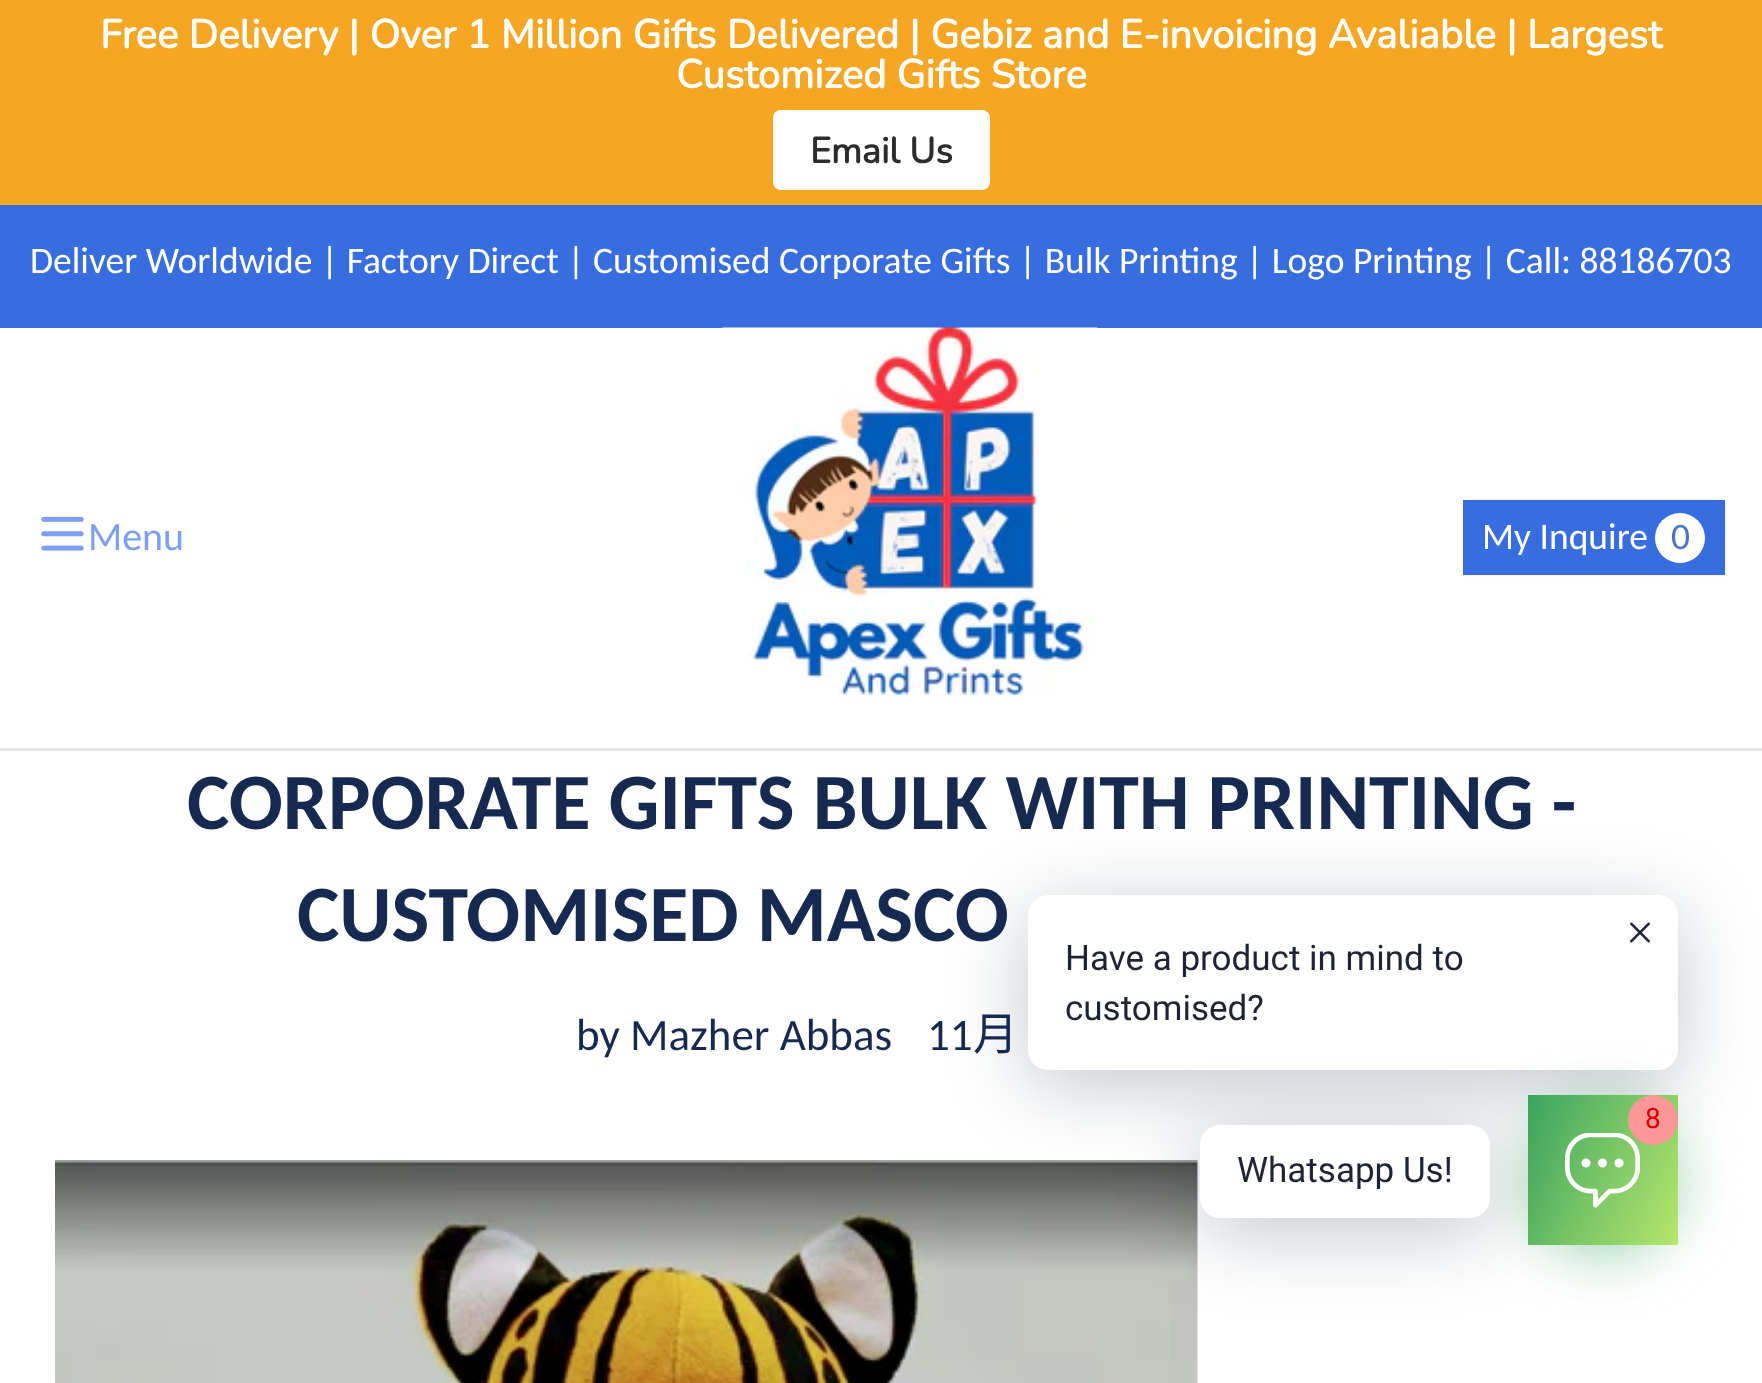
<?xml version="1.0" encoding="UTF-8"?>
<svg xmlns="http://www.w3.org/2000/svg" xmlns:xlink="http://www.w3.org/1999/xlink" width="1762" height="1383">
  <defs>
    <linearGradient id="g1" gradientUnits="userSpaceOnUse" x1="1512" y1="1128" x2="1693" y2="1212"><stop offset="0" stop-color="#3aa560" /><stop offset="1" stop-color="#b7e66c" /></linearGradient>
  </defs>
  <rect width="100%" height="100%" fill="#ffffff" />
  <rect width="1762" height="205" fill="#f5a623" />
  <rect x="773" y="110" width="217" height="80" rx="8" fill="#ffffff" />
  <rect y="748" width="1762" height="3" fill="#e4e4e4" />
  <rect y="205" width="1762" height="123" fill="#386de0" />
  <image x="41" y="516" width="43" height="35" xlink:href="image1.png" />
  <image x="722" y="327" width="376" height="370" xlink:href="image2.png" />
  <rect x="1463" y="500" width="262" height="75" fill="#386de0" />
  <circle cx="1680" cy="538" r="25" fill="#ffffff" />
  <image x="55" y="1160" width="1143" height="223" xlink:href="image3.png" />
  <rect x="1028" y="910" width="650" height="175" rx="20" fill="#00122e" fill-opacity="0.24" filter="blur(40px)" />
  <rect x="1028" y="895" width="650" height="175" rx="20" fill="#ffffff" />
  <image x="1630" y="922" width="20" height="21" xlink:href="image4.png" />
  <rect x="1528" y="1105" width="150" height="150" rx="75" fill="#3aa560" fill-opacity="0.5" filter="blur(30px)" />
  <rect x="1528" y="1095" width="150" height="150" fill="url(#g1)" />
  <rect x="1200" y="1140" width="290" height="93" rx="20" fill="#00122e" fill-opacity="0.24" filter="blur(40px)" />
  <image x="1565" y="1133" width="75" height="75" xlink:href="image5.png" />
  <circle cx="1653" cy="1120" r="25" fill="#fb9797" />
  <rect x="1200" y="1125" width="290" height="93" rx="20" fill="#ffffff" />
  <text x="100" y="48" style="font-family: Nunito; font-size: 40px; font-weight: bold; fill: #ffffff">Free Delivery | Over 1 Million Gifts Delivered | Gebiz and E-invoicing Avaliable | Largest</text>
  <text x="676" y="88" style="font-family: Nunito; font-size: 40px; font-weight: bold; fill: #ffffff">Customized Gifts Store</text>
  <text x="810" y="163" style="font-family: Nunito; font-size: 36px; font-weight: bold; fill: #2c2c2c">Email Us</text>
  <text x="30" y="273" style="font-family: Carlito; font-size: 37.5px; fill: #ffffff">Deliver Worldwide | Factory Direct | Customised Corporate Gifts | Bulk Printing | Logo Printing | Call: 88186703</text>
  <text x="88" y="550" style="font-family: Carlito; font-size: 40px; fill: #7c9ff2">Menu</text>
  <text x="1482" y="549" style="font-family: Carlito; font-size: 37.5px; fill: #ffffff">My Inquire</text>
  <text x="1671" y="549" style="font-family: Carlito; font-size: 37.5px; fill: #4c73c7">0</text>
  <text x="187" y="829" style="font-family: Carlito; font-size: 80px; font-weight: bold; fill: #162950">CORPORATE GIFTS BULK WITH PRINTING -</text>
  <text x="297" y="941" style="font-family: Carlito; font-size: 80px; font-weight: bold; fill: #162950">CUSTOMISED MASCO</text>
  <text x="576" y="1050" style="font-family: Carlito; font-size: 45px; fill: #162950">by Mazher Abbas</text>
  <text x="927" y="1050" style="font-family: Carlito; font-size: 45px; fill: #162950">11</text>
  <text x="973" y="1050" style="font-family: Noto Sans CJK TC; font-size: 45px; fill: #162950">月</text>
  <text x="1065" y="970" style="font-family: Roboto; font-size: 35px; fill: #1e2433">Have a product in mind to</text>
  <text x="1065" y="1020" style="font-family: Roboto; font-size: 35px; fill: #1e2433">customised?</text>
  <text x="1645" y="1128" style="font-family: Roboto; font-size: 28px; fill: #dd0000">8</text>
  <text x="1237" y="1182" style="font-family: Roboto; font-size: 35px; fill: #1e2433">Whatsapp Us!</text>
</svg>
